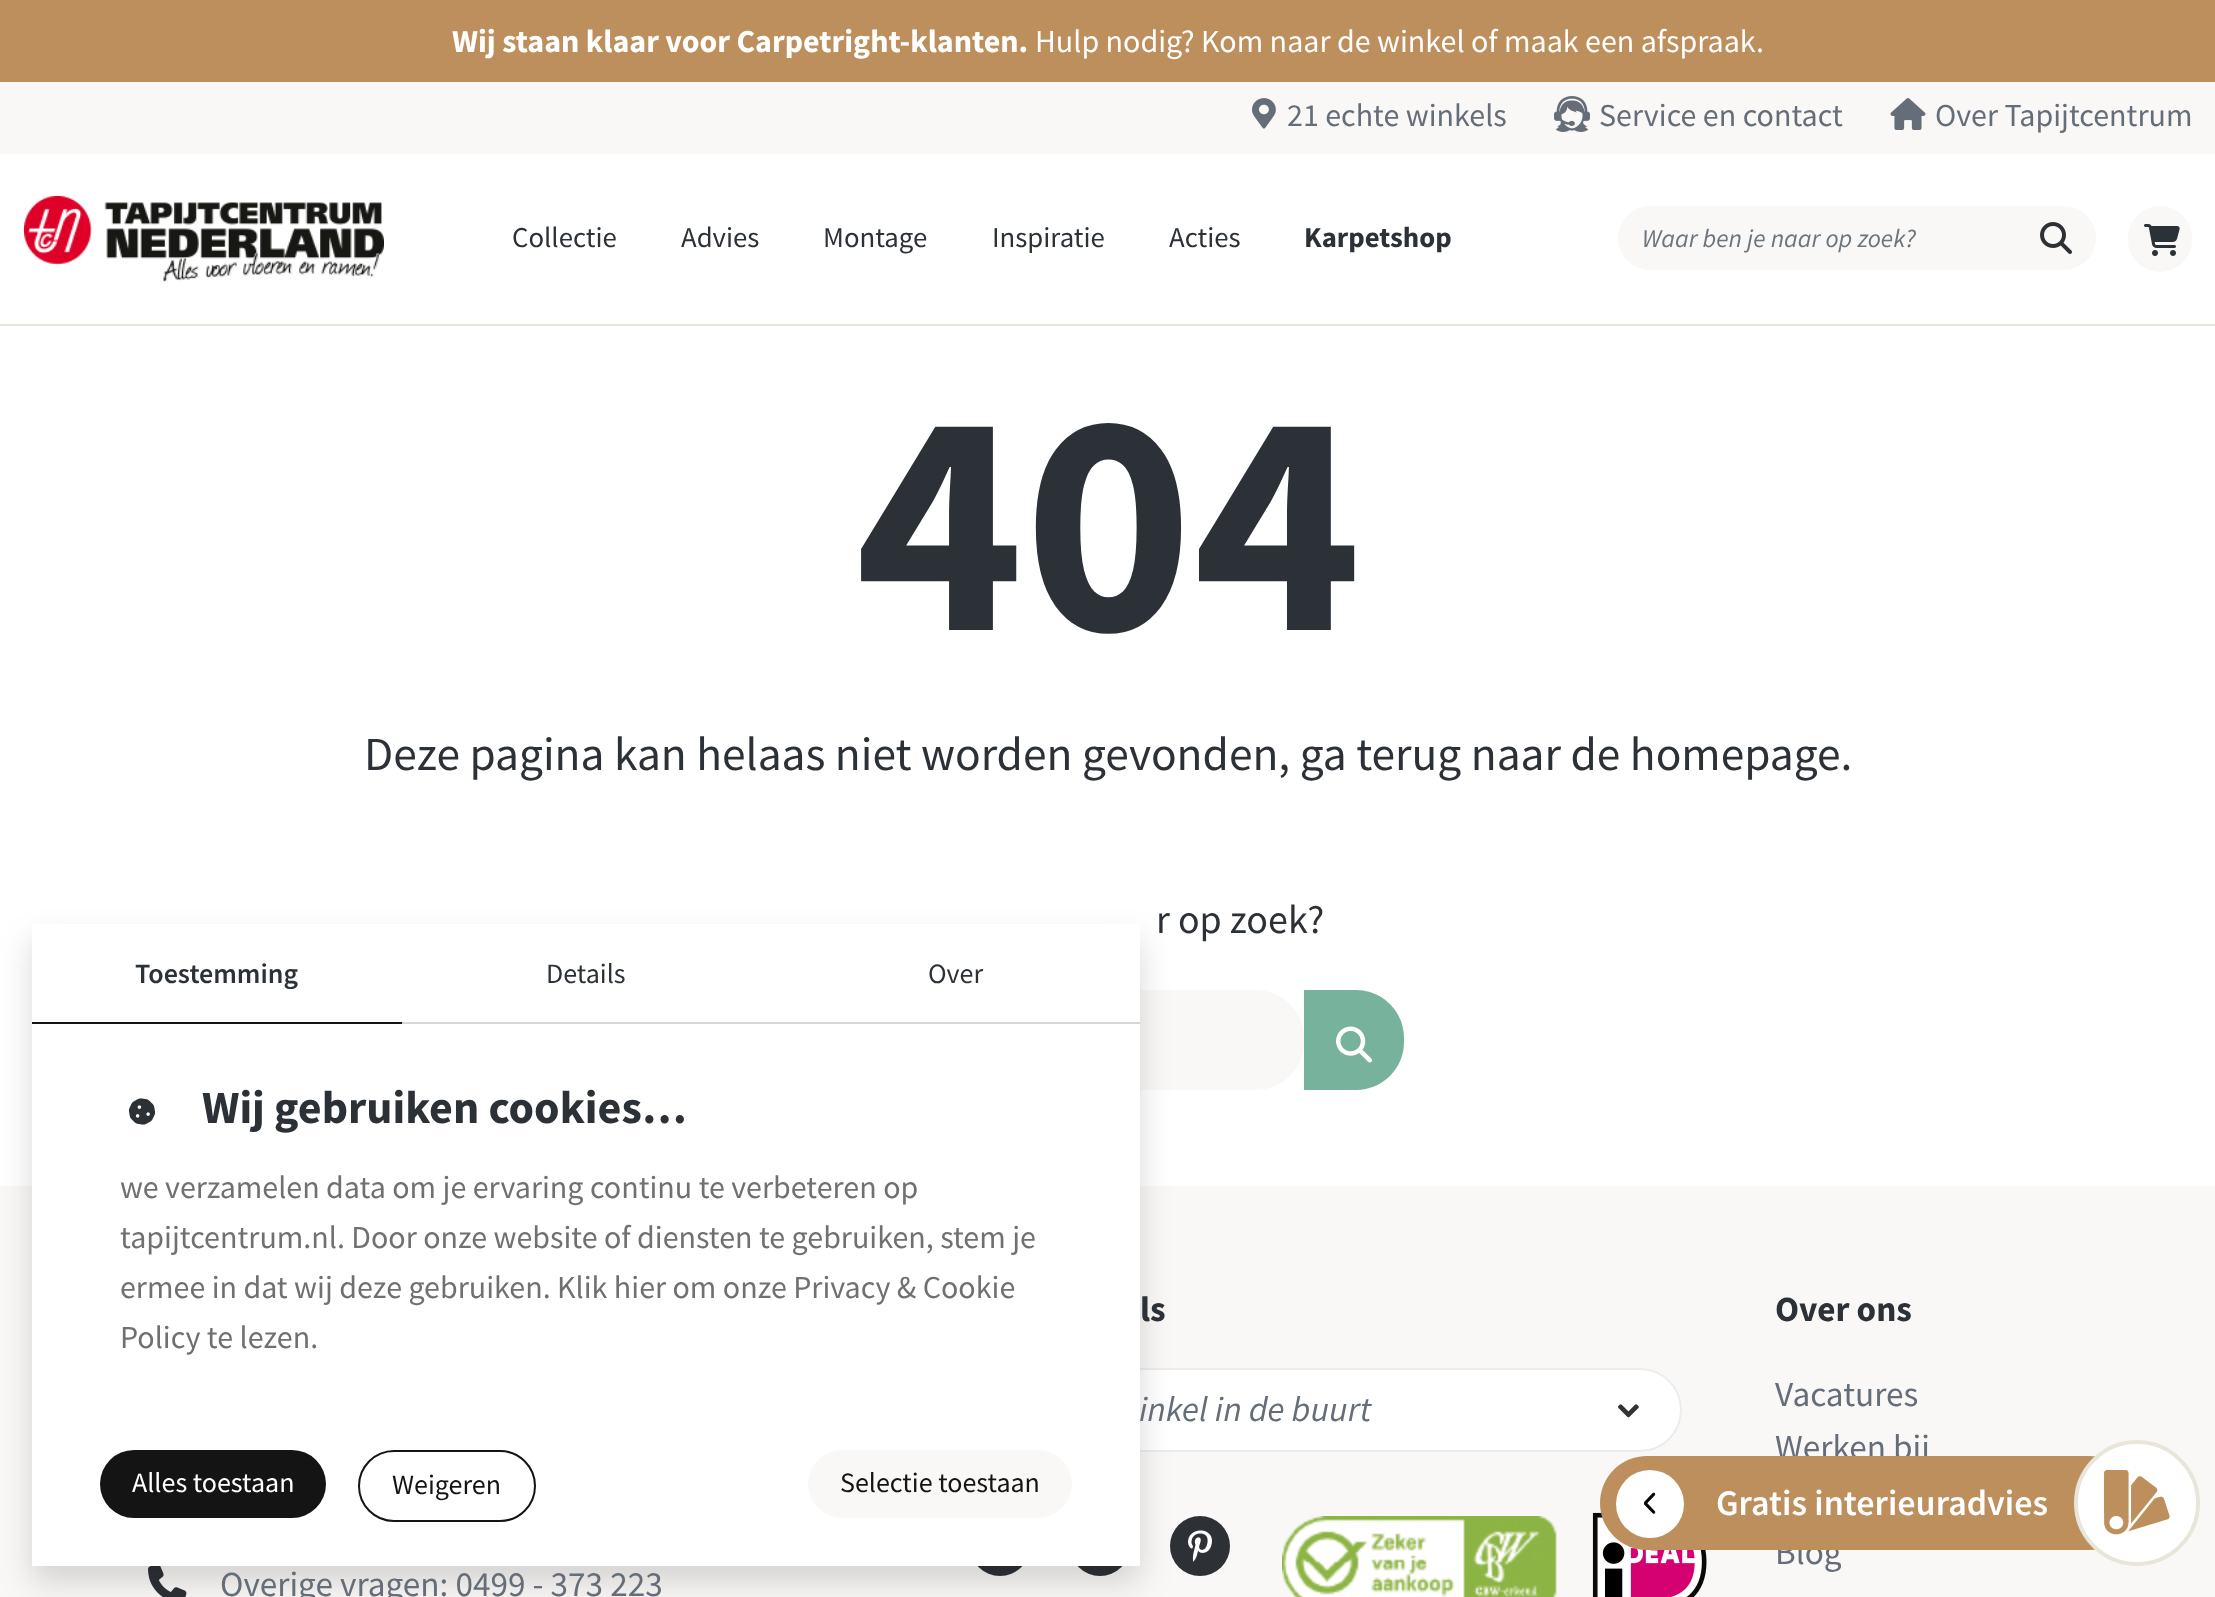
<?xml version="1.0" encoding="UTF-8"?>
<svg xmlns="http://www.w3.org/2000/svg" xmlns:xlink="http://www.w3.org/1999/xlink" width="2215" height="1597">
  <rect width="100%" height="100%" fill="#ffffff" />
  <rect width="2215" height="82" fill="#bd8f5d" />
  <rect y="82" width="2215" height="72" fill="#f9f8f6" />
  <image x="1252" y="98" width="24" height="31" xlink:href="image1.png" />
  <image x="1554" y="96" width="36" height="36" xlink:href="image2.png" />
  <image x="1890" y="98" width="36" height="32" xlink:href="image3.png" />
  <rect y="324" width="2215" height="2" fill="#e8e5db" />
  <image x="24" y="196" width="360" height="86" xlink:href="image4.png" />
  <path d="M 2016 206 h 48 c 17.5 0 32 14.5 32 32 c 0 17.5 -14.5 32 -32 32 h -48 z" fill="#f9f8f6" />
  <path d="M 1650 206 h 368 v 64 h -368 c -17.5 0 -32 -14.5 -32 -32 c 0 -17.5 14.5 -32 32 -32 z" fill="#f9f8f6" />
  <image x="2040" y="222" width="32" height="32" xlink:href="image5.png" />
  <rect x="2128" y="206" width="64" height="66" rx="32" fill="#f9f8f6" />
  <image x="2144" y="224" width="36" height="32" xlink:href="image6.png" />
  <rect x="812" y="990" width="492" height="100" rx="48" fill="#f9f8f6" />
  <path d="M 1304 990 h 52 c 26.5 0 48 21.5 48 48 v 4 c 0 26.5 -21.5 48 -48 48 h -52 z" fill="#76b29c" />
  <image x="1336" y="1026" width="36" height="37" xlink:href="image7.png" />
  <rect y="1186" width="2215" height="411" fill="#f9f8f6" />
  <rect x="962" y="1368" width="720" height="84" rx="42" fill="#ffffff" />
  <image x="1618" y="1404" width="21" height="14" xlink:href="image9.png" />
  <rect x="963" y="1369" width="718" height="82" rx="41" fill="none" stroke="#ececec" stroke-width="2" />
  <circle cx="1000" cy="1546" r="30" fill="#2d3136" />
  <circle cx="1100" cy="1546" r="30" fill="#2d3136" />
  <circle cx="1200" cy="1546" r="30" fill="#2d3136" />
  <image x="1188" y="1530" width="24" height="32" xlink:href="image10.png" />
  <image x="148" y="1566" width="39" height="31" xlink:href="image13.png" />
  <rect x="32" y="940" width="1108" height="642" fill="#000000" fill-opacity="0.15" filter="blur(16px)" />
  <image x="1282" y="1516" width="275" height="81" xlink:href="image11.png" />
  <image x="1592" y="1512" width="115" height="85" xlink:href="image12.png" />
  <image x="2089" y="1549" width="7" height="1" xlink:href="image16.png" />
  <text x="452" y="52" style="font-family: Source Sans Pro; font-size: 32px; font-weight: bold; fill: #ffffff">Wij staan klaar voor Carpetright-klanten.</text>
  <text x="1035" y="52" style="font-family: Source Sans Pro; font-size: 32px; fill: #ffffff">Hulp nodig? Kom naar de winkel of maak een afspraak.</text>
  <text x="1287" y="126" style="font-family: Source Sans Pro; font-size: 32px; fill: #656d78">21 echte winkels</text>
  <text x="1599" y="126" style="font-family: Source Sans Pro; font-size: 32px; fill: #656d78">Service en contact</text>
  <text x="1935" y="126" style="font-family: Source Sans Pro; font-size: 32px; fill: #656d78">Over Tapijtcentrum</text>
  <text x="512" y="247" style="font-family: Source Sans Pro; font-size: 28.75px; fill: #2c3137">Collectie</text>
  <text x="681" y="247" style="font-family: Source Sans Pro; font-size: 28.75px; fill: #2c3137">Advies</text>
  <text x="823" y="247" style="font-family: Source Sans Pro; font-size: 28.75px; fill: #2c3137">Montage</text>
  <text x="992" y="247" style="font-family: Source Sans Pro; font-size: 28.75px; fill: #2c3137">Inspiratie</text>
  <text x="1169" y="247" style="font-family: Source Sans Pro; font-size: 28.75px; fill: #2c3137">Acties</text>
  <text x="1304" y="247" style="font-family: Source Sans Pro; font-size: 28.75px; font-weight: bold; fill: #2c3137">Karpetshop</text>
  <text x="1642" y="247" style="font-family: Source Sans Pro; font-size: 25.6px; font-style: italic; fill: #6c757d">Waar ben je naar op zoek?</text>
  <text x="855" y="630" style="font-family: Source Sans Pro; font-size: 320px; font-weight: bold; fill: #2c3137">404</text>
  <text x="364" y="770" style="font-family: Source Sans Pro; font-size: 47.45px; fill: #2c3137">Deze pagina kan helaas niet worden gevonden, ga terug naar de homepage.</text>
  <text x="1156" y="933" style="font-family: Source Sans Pro; font-size: 40px; fill: #2c3137">r op zoek?</text>
  <text x="1140" y="1321" style="font-family: Source Sans Pro; font-size: 35.25px; font-weight: bold; fill: #2c3137">ls</text>
  <text x="1139" y="1421" style="font-family: Source Sans Pro; font-size: 35.25px; font-style: italic; fill: #656d78">inkel in de buurt</text>
  <rect x="32" y="924" width="1108" height="642" fill="#ffffff" />
  <text x="120" y="1348" style="font-family: Source Sans Pro; font-size: 32px; fill: #707070">Policy te lezen.</text>
  <text x="120" y="1298" style="font-family: Source Sans Pro; font-size: 32px; fill: #707070">ermee in dat wij deze gebruiken. Klik hier om onze Privacy &amp; Cookie</text>
  <text x="120" y="1248" style="font-family: Source Sans Pro; font-size: 32px; fill: #707070">tapijtcentrum.nl. Door onze website of diensten te gebruiken, stem je</text>
  <text x="120" y="1198" style="font-family: Source Sans Pro; font-size: 32px; fill: #707070">we verzamelen data om je ervaring continu te verbeteren op</text>
  <text x="202" y="1123" style="font-family: Source Sans Pro; font-size: 46px; font-weight: bold; fill: #2c3137">Wij gebruiken cookies…</text>
  <image x="128" y="1098" width="28" height="27" xlink:href="image8.png" />
  <text x="928" y="983" style="font-family: Source Sans Pro; font-size: 28px; fill: #2c3137">Over</text>
  <text x="546" y="983" style="font-family: Source Sans Pro; font-size: 28px; fill: #2c3137">Details</text>
  <text x="135" y="983" style="font-family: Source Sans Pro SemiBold; font-size: 28px; font-weight: 600; fill: #2c3137">Toestemming</text>
  <rect x="32" y="1022" width="370" height="2" fill="#141414" />
  <rect x="808" y="1450" width="264" height="68" rx="34" fill="#f9f8f6" />
  <text x="840" y="1492" style="font-family: Source Sans Pro; font-size: 28px; fill: #141414">Selectie toestaan</text>
  <rect x="359" y="1451" width="176" height="70" rx="35" fill="none" stroke="#141414" stroke-width="2" />
  <text x="392" y="1494" style="font-family: Source Sans Pro; font-size: 28px; fill: #141414">Weigeren</text>
  <rect x="100" y="1450" width="226" height="68" rx="34" fill="#141414" />
  <text x="132" y="1492" style="font-family: Source Sans Pro; font-size: 28px; fill: #ffffff">Alles toestaan</text>
  <rect x="402" y="1022" width="738" height="2" fill="#d6d6d6" />
  <text x="1775" y="1321" style="font-family: Source Sans Pro; font-size: 35.25px; font-weight: bold; fill: #2c3137">Over ons</text>
  <text x="1775" y="1406" style="font-family: Source Sans Pro; font-size: 35.25px; fill: #656d78">Vacatures</text>
  <text x="1775" y="1459" style="font-family: Source Sans Pro; font-size: 35.25px; fill: #656d78">Werken bij</text>
  <text x="1775" y="1564" style="font-family: Source Sans Pro; font-size: 35.25px; fill: #656d78">Blog</text>
  <text x="220" y="1596" style="font-family: Source Sans Pro; font-size: 35.25px; fill: #656d78">Overige vragen: 0499 - 373 223</text>
  <rect x="1600" y="1456" width="536" height="94" rx="47" fill="#bd8f5d" />
  <circle cx="1650" cy="1504" r="34" fill="#ffffff" />
  <image x="1644" y="1492" width="12" height="22" xlink:href="image14.png" />
  <text x="1716" y="1515" style="font-family: Source Sans Pro SemiBold; font-size: 36px; font-weight: 600; fill: #ffffff">Gratis interieuradvies</text>
  <circle cx="2137" cy="1503" r="61" fill="#ffffff" stroke="#e8e5db" stroke-width="4" />
  <image x="2104" y="1470" width="66" height="65" xlink:href="image15.png" />
</svg>
